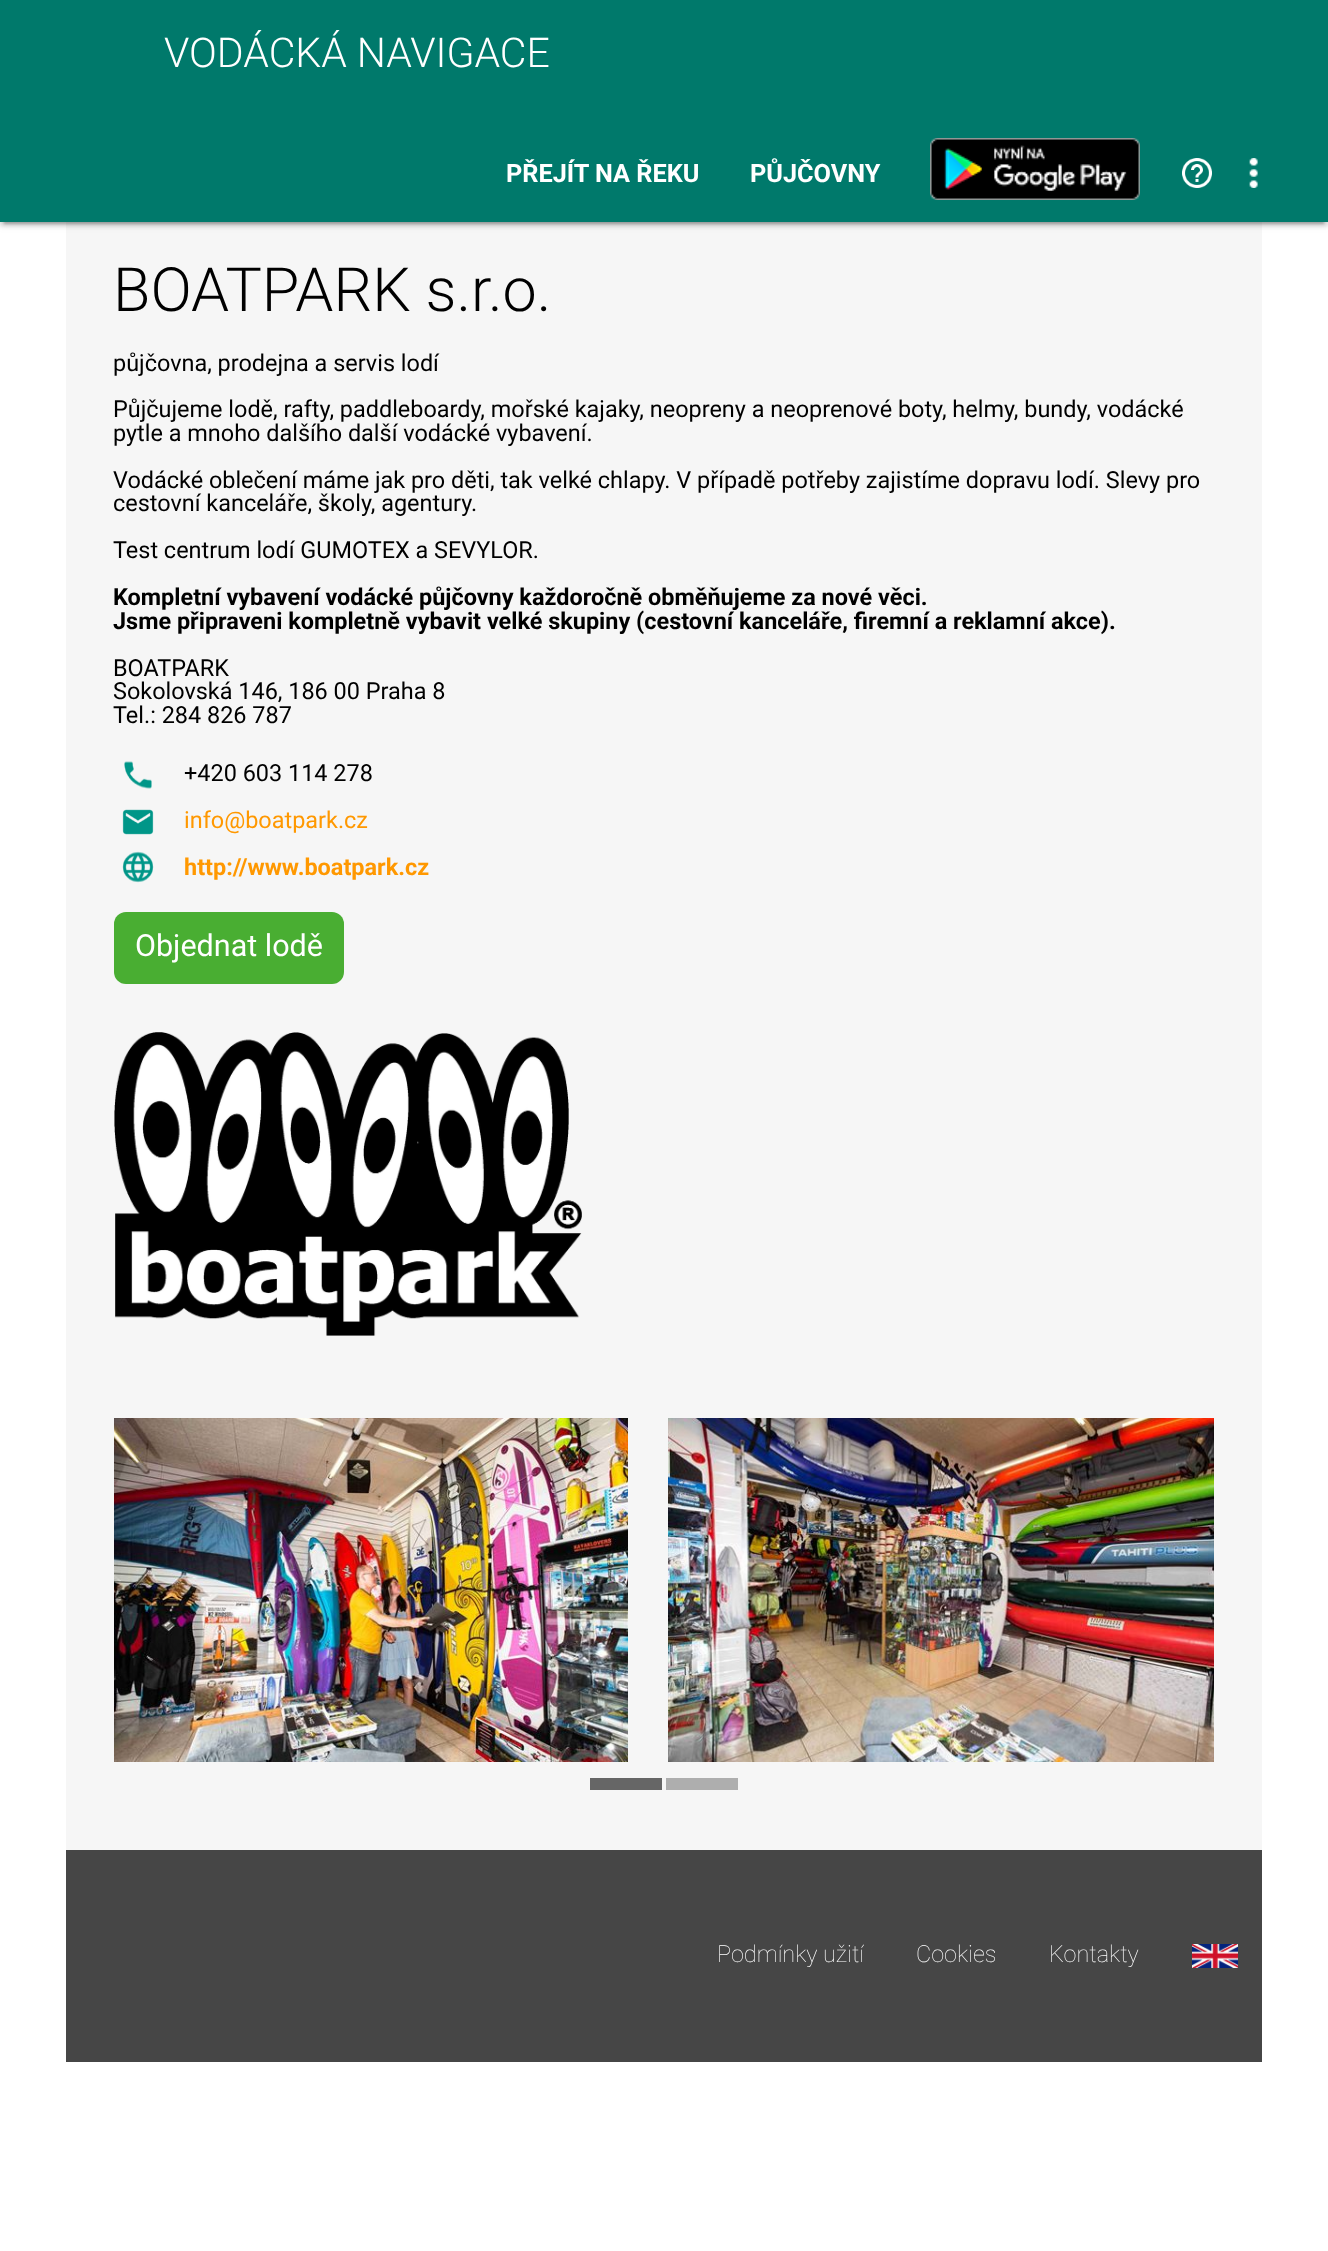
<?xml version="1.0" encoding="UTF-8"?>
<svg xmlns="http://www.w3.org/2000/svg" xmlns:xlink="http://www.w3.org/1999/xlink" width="1328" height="2251">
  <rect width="100%" height="100%" fill="#ffffff" />
  <rect x="66" y="222" width="1196" height="1628" fill="#f6f6f6" />
  <rect y="2" width="1328" height="222" fill="#000000" fill-opacity="0.12" filter="blur(5px)" />
  <rect x="4" y="10" width="1320" height="214" fill="#000000" fill-opacity="0.2" filter="blur(1px)" />
  <rect y="4" width="1328" height="222" fill="#000000" fill-opacity="0.14" filter="blur(2px)" />
  <rect width="1328" height="222" fill="#00796b" />
  <image x="930" y="138" width="210" height="62" xlink:href="image1.png" />
  <image x="1182" y="158" width="30" height="30" xlink:href="image2.png" />
  <image x="1249" y="158" width="9" height="30" xlink:href="image3.png" />
  <image x="124" y="761" width="28" height="28" xlink:href="image4.png" />
  <image x="122" y="809" width="32" height="26" xlink:href="image5.png" />
  <image x="122" y="851" width="32" height="32" xlink:href="image6.png" />
  <rect x="114" y="912" width="230" height="72" rx="12" fill="#49ae32" />
  <image x="114" y="1032" width="468" height="304" xlink:href="image7.png" />
  <image x="114" y="1418" width="514" height="344" xlink:href="image8.png" />
  <image x="668" y="1418" width="546" height="344" xlink:href="image9.png" />
  <rect x="590" y="1778" width="72" height="12" fill="#666666" />
  <rect x="666" y="1778" width="72" height="12" fill="#aeaeae" />
  <rect x="66" y="1850" width="1196" height="212" fill="#464646" />
  <image x="1192" y="1944" width="46" height="24" xlink:href="image10.png" />
  <text x="164" y="67" style="font-family: Roboto; font-size: 41px; font-weight: 300; fill: #ffffff">VODÁCKÁ NAVIGACE</text>
  <text x="506" y="182" style="font-family: Roboto; font-size: 25.25px; font-weight: bold; fill: #ffffff">PŘEJÍT NA ŘEKU</text>
  <text x="750" y="182" style="font-family: Roboto; font-size: 25.25px; font-weight: bold; fill: #ffffff">PŮJČOVNY</text>
  <text x="113" y="311" style="font-family: Roboto; font-size: 61px; font-weight: 300; fill: #000000">BOATPARK s.r.o.</text>
  <text x="113" y="371" style="font-family: Roboto; font-size: 23.45px; fill: #000000">půjčovna, prodejna a servis lodí</text>
  <text x="113" y="417" style="font-family: Roboto; font-size: 23.45px; fill: #000000">Půjčujeme lodě, rafty, paddleboardy, mořské kajaky, neopreny a neoprenové boty, helmy, bundy, vodácké</text>
  <text x="113" y="441" style="font-family: Roboto; font-size: 23.45px; fill: #000000">pytle a mnoho dalšího další vodácké vybavení.</text>
  <text x="113" y="488" style="font-family: Roboto; font-size: 23.45px; fill: #000000">Vodácké oblečení máme jak pro děti, tak velké chlapy. V případě potřeby zajistíme dopravu lodí. Slevy pro</text>
  <text x="113" y="511" style="font-family: Roboto; font-size: 23.45px; fill: #000000">cestovní kanceláře, školy, agentury.</text>
  <text x="113" y="558" style="font-family: Roboto; font-size: 23.45px; fill: #000000">Test centrum lodí GUMOTEX a SEVYLOR.</text>
  <text x="113" y="605" style="font-family: Roboto; font-size: 23.45px; font-weight: bold; fill: #000000">Kompletní vybavení vodácké půjčovny každoročně obměňujeme za nové věci.</text>
  <text x="113" y="629" style="font-family: Roboto; font-size: 23.45px; font-weight: bold; fill: #000000">Jsme připraveni kompletně vybavit velké skupiny (cestovní kanceláře, firemní a reklamní akce).</text>
  <text x="113" y="676" style="font-family: Roboto; font-size: 23.45px; fill: #000000">BOATPARK</text>
  <text x="113" y="699" style="font-family: Roboto; font-size: 23.45px; fill: #000000">Sokolovská 146, 186 00 Praha 8</text>
  <text x="113" y="723" style="font-family: Roboto; font-size: 23.45px; fill: #000000">Tel.: 284 826 787</text>
  <text x="184" y="781" style="font-family: Roboto; font-size: 23.45px; fill: #000000">+420 603 114 278</text>
  <text x="184" y="828" style="font-family: Roboto; font-size: 23.45px; fill: #ff9800">info@boatpark.cz</text>
  <text x="184" y="875" style="font-family: Roboto; font-size: 23.45px; font-weight: bold; fill: #ff9800">http://www.boatpark.cz</text>
  <text x="135" y="956" style="font-family: Roboto; font-size: 30.5px; fill: #ffffff">Objednat lodě</text>
  <text x="717" y="1962" style="font-family: Roboto; font-size: 23.45px; font-weight: 100; fill: #ffffff">Podmínky užití</text>
  <text x="916" y="1962" style="font-family: Roboto; font-size: 23.45px; font-weight: 100; fill: #ffffff">Cookies</text>
  <text x="1049" y="1962" style="font-family: Roboto; font-size: 23.45px; font-weight: 100; fill: #ffffff">Kontakty</text>
</svg>
